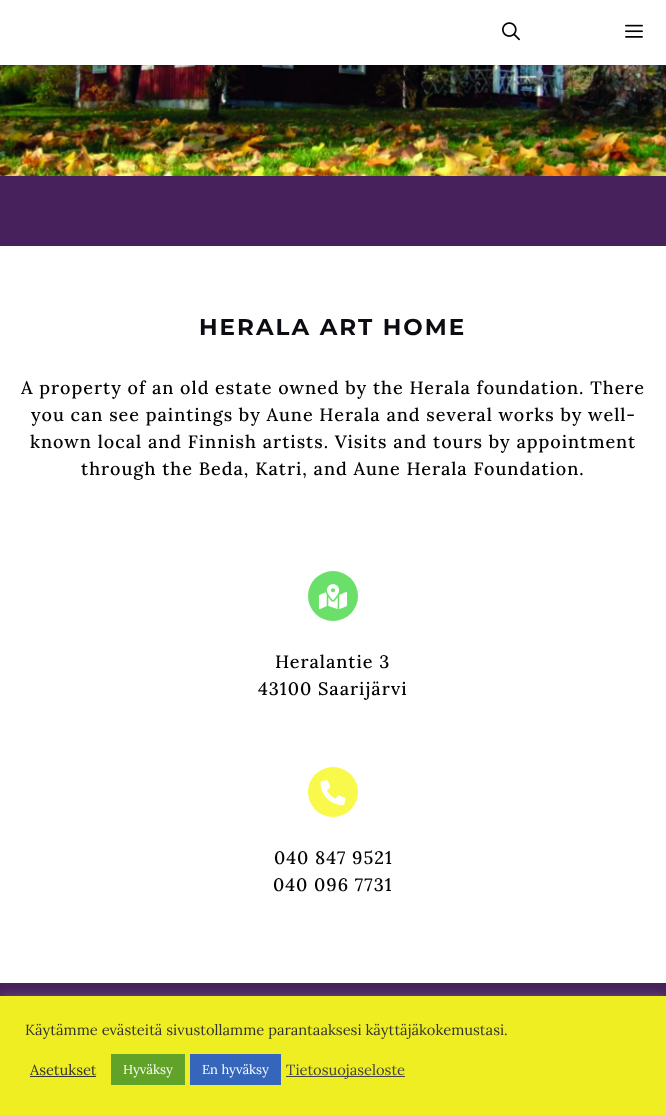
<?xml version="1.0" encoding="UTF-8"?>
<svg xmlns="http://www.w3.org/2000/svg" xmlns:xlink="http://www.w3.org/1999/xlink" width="666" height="1115">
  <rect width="100%" height="100%" fill="#ffffff" />
  <image x="0" y="65" width="666" height="111" xlink:href="image3.png" />
  <rect x="2" y="4" width="662" height="61" fill="#000000" fill-opacity="0.2" filter="blur(1px)" />
  <rect y="2" width="666" height="63" fill="#ffffff" />
  <image x="502" y="22" width="18" height="19" xlink:href="image1.png" />
  <image x="625" y="24" width="18" height="14" xlink:href="image2.png" />
  <rect y="176" width="666" height="70" fill="#47215c" />
  <circle cx="333" cy="596" r="25" fill="#6ae06a" />
  <image x="318" y="584" width="30" height="26" xlink:href="image4.png" />
  <circle cx="333" cy="792" r="25" fill="#f8f94b" />
  <image x="320" y="780" width="26" height="26" xlink:href="image5.png" />
  <rect y="983" width="666" height="13" fill="#47215c" />
  <rect y="995" width="666" height="119" fill="#acabab" fill-opacity="0.3" filter="blur(5px)" />
  <rect y="996" width="666" height="119" fill="#eeee22" />
  <rect x="30" y="1076" width="66" height="1" fill="#333333" />
  <rect x="111" y="1054" width="74" height="31" fill="#61a229" />
  <rect x="190" y="1054" width="91" height="31" fill="#3566bb" />
  <rect x="286" y="1076" width="119" height="1" fill="#444444" />
  <text x="199" y="335" style="font-family: Montserrat; font-size: 23px; font-weight: bold; letter-spacing: 2px; fill: #0e0c12">HERALA ART HOME</text>
  <text x="21" y="394" style="font-family: Lora; font-size: 18px; font-weight: 500; letter-spacing: 1px; fill: #020202">A property of an old estate owned by the Herala foundation. There</text>
  <text x="31" y="421" style="font-family: Lora; font-size: 18px; font-weight: 500; letter-spacing: 1px; fill: #020202">you can see paintings by Aune Herala and several works by well-</text>
  <text x="30" y="448" style="font-family: Lora; font-size: 18px; font-weight: 500; letter-spacing: 1px; fill: #020202">known local and Finnish artists. Visits and tours by appointment</text>
  <text x="81" y="475" style="font-family: Lora; font-size: 18px; font-weight: 500; letter-spacing: 1px; fill: #020202">through the Beda, Katri, and Aune Herala Foundation.</text>
  <text x="275" y="668" style="font-family: Lora; font-size: 18px; font-weight: 500; letter-spacing: 1px; fill: #020202">Heralantie 3</text>
  <text x="258" y="695" style="font-family: Lora; font-size: 18px; font-weight: 500; letter-spacing: 1px; fill: #020202">43100 Saarijärvi</text>
  <text x="274" y="864" style="font-family: Lora; font-size: 18px; font-weight: 500; letter-spacing: 1px; fill: #020202">040 847 9521</text>
  <text x="273" y="891" style="font-family: Lora; font-size: 18px; font-weight: 500; letter-spacing: 1px; fill: #020202">040 096 7731</text>
  <text x="25" y="1035" style="font-family: Lora; font-size: 14.7px; fill: #333333">Käytämme evästeitä sivustollamme parantaaksesi käyttäjäkokemustasi.</text>
  <text x="30" y="1075" style="font-family: Lora; font-size: 14.7px; fill: #333333">Asetukset</text>
  <text x="123" y="1074" style="font-family: Lora; font-size: 13px; fill: #ffffff">Hyväksy</text>
  <text x="202" y="1074" style="font-family: Lora; font-size: 13px; fill: #ffffff">En hyväksy</text>
  <text x="286" y="1075" style="font-family: Lora; font-size: 14.7px; fill: #444444">Tietosuojaseloste</text>
</svg>
